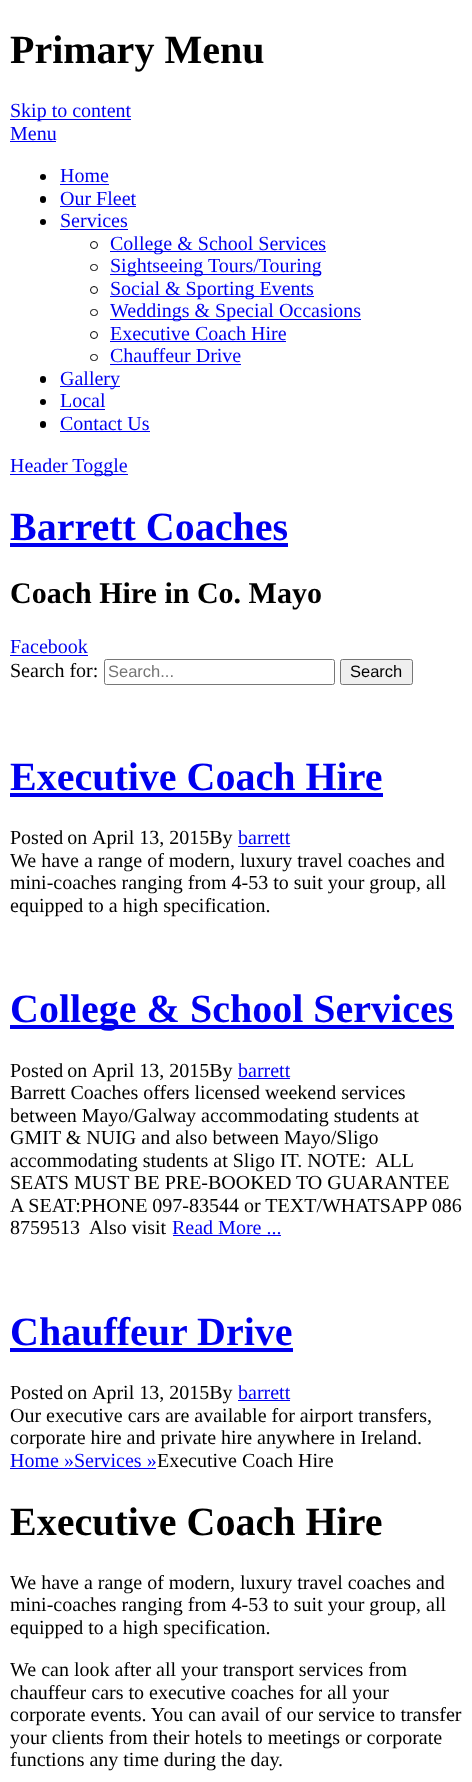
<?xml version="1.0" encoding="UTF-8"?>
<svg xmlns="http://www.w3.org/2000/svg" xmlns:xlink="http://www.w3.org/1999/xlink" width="472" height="1782">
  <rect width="100%" height="100%" fill="#ffffff" />
  <rect x="10" y="119" width="121" height="1" fill="#0000ee" />
  <rect x="10" y="141" width="46" height="1" fill="#0000ee" />
  <circle cx="43" cy="177" r="3" fill="#000000" />
  <rect x="60" y="184" width="49" height="1" fill="#0000ee" />
  <rect x="40" y="196" width="6" height="7" rx="3" fill="#000000" />
  <rect x="60" y="206" width="76" height="1" fill="#0000ee" />
  <circle cx="43" cy="222" r="3" fill="#000000" />
  <rect x="60" y="229" width="68" height="1" fill="#0000ee" />
  <circle cx="94" cy="245" r="3.5" fill="none" stroke="#000000" />
  <rect x="110" y="251" width="216" height="1" fill="#0000ee" />
  <rect x="90.5" y="264.5" width="7" height="6" rx="3" fill="none" stroke="#000000" />
  <rect x="110" y="274" width="211" height="1" fill="#0000ee" />
  <circle cx="94" cy="290" r="3.5" fill="none" stroke="#000000" />
  <rect x="110" y="296" width="204" height="1" fill="#0000ee" />
  <rect x="90.5" y="309.5" width="7" height="6" rx="3" fill="none" stroke="#000000" />
  <rect x="110" y="319" width="251" height="1" fill="#0000ee" />
  <circle cx="94" cy="335" r="3.5" fill="none" stroke="#000000" />
  <rect x="110" y="341" width="176" height="1" fill="#0000ee" />
  <rect x="90.5" y="354.5" width="7" height="6" rx="3" fill="none" stroke="#000000" />
  <rect x="110" y="364" width="131" height="1" fill="#0000ee" />
  <rect x="40" y="376" width="6" height="7" rx="3" fill="#000000" />
  <rect x="60" y="386" width="60" height="1" fill="#0000ee" />
  <circle cx="43" cy="402" r="3" fill="#000000" />
  <rect x="60" y="409" width="45" height="1" fill="#0000ee" />
  <rect x="40" y="421" width="6" height="7" rx="3" fill="#000000" />
  <rect x="60" y="431" width="90" height="1" fill="#0000ee" />
  <rect x="10" y="474" width="118" height="1" fill="#0000ee" />
  <rect x="10" y="543" width="278" height="4" fill="#0000ee" />
  <rect x="10" y="655" width="78" height="1" fill="#0000ee" />
  <rect x="104.5" y="659.5" width="230" height="25" rx="2" fill="none" stroke="#767676" />
  <rect x="340.5" y="659.5" width="72" height="25" rx="2" fill="#efefef" stroke="#767676" />
  <rect x="10" y="793" width="373" height="4" fill="#0000ee" />
  <rect x="238" y="846" width="52" height="1" fill="#0000ee" />
  <rect x="10" y="1025" width="444" height="4" fill="#0000ee" />
  <rect x="238" y="1078" width="52" height="1" fill="#0000ee" />
  <rect x="173" y="1235" width="108" height="1" fill="#0000ee" />
  <rect x="10" y="1348" width="283" height="4" fill="#0000ee" />
  <rect x="238" y="1400" width="52" height="1" fill="#0000ee" />
  <rect x="10" y="1468" width="146" height="1" fill="#0000ee" />
  <text x="10" y="63" style="font-family: Liberation Serif; font-size: 40px; font-weight: bold; fill: #000000">Primary Menu</text>
  <text x="10" y="117" style="font-family: Liberation Serif; font-size: 20px; fill: #0000ee">Skip to content</text>
  <text x="10" y="140" style="font-family: Liberation Serif; font-size: 20px; fill: #0000ee">Menu</text>
  <text x="60" y="182" style="font-family: Liberation Serif; font-size: 20px; fill: #0000ee">Home</text>
  <text x="60" y="205" style="font-family: Liberation Serif; font-size: 20px; fill: #0000ee">Our Fleet</text>
  <text x="60" y="227" style="font-family: Liberation Serif; font-size: 20px; fill: #0000ee">Services</text>
  <text x="110" y="250" style="font-family: Liberation Serif; font-size: 20px; fill: #0000ee">College &amp; School Services</text>
  <text x="110" y="272" style="font-family: Liberation Serif; font-size: 20px; fill: #0000ee">Sightseeing Tours/Touring</text>
  <text x="110" y="295" style="font-family: Liberation Serif; font-size: 20px; fill: #0000ee">Social &amp; Sporting Events</text>
  <text x="110" y="317" style="font-family: Liberation Serif; font-size: 20px; fill: #0000ee">Weddings &amp; Special Occasions</text>
  <text x="110" y="340" style="font-family: Liberation Serif; font-size: 20px; fill: #0000ee">Executive Coach Hire</text>
  <text x="110" y="362" style="font-family: Liberation Serif; font-size: 20px; fill: #0000ee">Chauffeur Drive</text>
  <text x="60" y="385" style="font-family: Liberation Serif; font-size: 20px; fill: #0000ee">Gallery</text>
  <text x="60" y="407" style="font-family: Liberation Serif; font-size: 20px; fill: #0000ee">Local</text>
  <text x="60" y="430" style="font-family: Liberation Serif; font-size: 20px; fill: #0000ee">Contact Us</text>
  <text x="10" y="472" style="font-family: Liberation Serif; font-size: 20px; fill: #0000ee">Header Toggle</text>
  <text x="10" y="540" style="font-family: Liberation Serif; font-size: 40px; font-weight: bold; fill: #0000ee">Barrett Coaches</text>
  <text x="10" y="603" style="font-family: Liberation Serif; font-size: 30px; font-weight: bold; fill: #000000">Coach Hire in Co. Mayo</text>
  <text x="10" y="653" style="font-family: Liberation Serif; font-size: 20px; fill: #0000ee">Facebook</text>
  <text x="10" y="677" style="font-family: Liberation Serif; font-size: 20px; fill: #000000">Search for:</text>
  <text x="108" y="677" style="font-family: Liberation Sans; font-size: 16.5px; fill: #757575">Search...</text>
  <text x="350" y="677" style="font-family: Liberation Sans; font-size: 16.5px; fill: #000000">Search</text>
  <text x="10" y="790" style="font-family: Liberation Serif; font-size: 40px; font-weight: bold; fill: #0000ee">Executive Coach Hire</text>
  <text x="10" y="844" word-spacing="-1" style="font-family: Liberation Serif; font-size: 20px; fill: #000000">Posted on</text>
  <text x="92" y="844" style="font-family: Liberation Serif; font-size: 20px; fill: #000000">April 13, 2015By</text>
  <text x="238" y="844" style="font-family: Liberation Serif; font-size: 20px; fill: #0000ee">barrett</text>
  <text x="10" y="867" style="font-family: Liberation Serif; font-size: 20px; fill: #000000">We have a range of modern, luxury travel coaches and</text>
  <text x="10" y="889" style="font-family: Liberation Serif; font-size: 20px; fill: #000000">mini-coaches ranging from 4-53 to suit your group, all</text>
  <text x="10" y="912" style="font-family: Liberation Serif; font-size: 20px; fill: #000000">equipped to a high specification.</text>
  <text x="10" y="1022" style="font-family: Liberation Serif; font-size: 40px; font-weight: bold; fill: #0000ee">College &amp; School Services</text>
  <text x="10" y="1077" word-spacing="-1" style="font-family: Liberation Serif; font-size: 20px; fill: #000000">Posted on</text>
  <text x="92" y="1077" style="font-family: Liberation Serif; font-size: 20px; fill: #000000">April 13, 2015By</text>
  <text x="238" y="1077" style="font-family: Liberation Serif; font-size: 20px; fill: #0000ee">barrett</text>
  <text x="10" y="1099" style="font-family: Liberation Serif; font-size: 20px; fill: #000000">Barrett Coaches offers licensed weekend services</text>
  <text x="10" y="1122" style="font-family: Liberation Serif; font-size: 20px; fill: #000000">between Mayo/Galway accommodating students at</text>
  <text x="10" y="1144" style="font-family: Liberation Serif; font-size: 20px; fill: #000000">GMIT &amp; NUIG and also between Mayo/Sligo</text>
  <text x="10" y="1167" style="font-family: Liberation Serif; font-size: 20px; fill: #000000" xml:space="preserve">accommodating students at Sligo IT. NOTE:  ALL</text>
  <text x="10" y="1189" style="font-family: Liberation Serif; font-size: 20px; fill: #000000">SEATS MUST BE PRE-BOOKED TO GUARANTEE</text>
  <text x="10" y="1212" style="font-family: Liberation Serif; font-size: 20px; fill: #000000">A SEAT:PHONE 097-83544 or TEXT/WHATSAPP 086</text>
  <text x="10" y="1234" style="font-family: Liberation Serif; font-size: 20px; fill: #000000" xml:space="preserve">8759513  Also visit</text>
  <text x="172" y="1234" style="font-family: Liberation Serif; font-size: 20px; fill: #0000ee">Read More ...</text>
  <text x="10" y="1345" style="font-family: Liberation Serif; font-size: 40px; font-weight: bold; fill: #0000ee">Chauffeur Drive</text>
  <text x="10" y="1399" word-spacing="-1" style="font-family: Liberation Serif; font-size: 20px; fill: #000000">Posted on</text>
  <text x="92" y="1399" style="font-family: Liberation Serif; font-size: 20px; fill: #000000">April 13, 2015By</text>
  <text x="238" y="1399" style="font-family: Liberation Serif; font-size: 20px; fill: #0000ee">barrett</text>
  <text x="10" y="1422" style="font-family: Liberation Serif; font-size: 20px; fill: #000000">Our executive cars are available for airport transfers,</text>
  <text x="10" y="1444" style="font-family: Liberation Serif; font-size: 20px; fill: #000000">corporate hire and private hire anywhere in Ireland.</text>
  <text x="10" y="1467" style="font-family: Liberation Serif; font-size: 20px; fill: #0000ee">Home »Services »</text>
  <text x="157" y="1467" style="font-family: Liberation Serif; font-size: 20px; fill: #000000">Executive Coach Hire</text>
  <text x="10" y="1535" style="font-family: Liberation Serif; font-size: 40px; font-weight: bold; fill: #000000">Executive Coach Hire</text>
  <text x="10" y="1589" style="font-family: Liberation Serif; font-size: 20px; fill: #000000">We have a range of modern, luxury travel coaches and</text>
  <text x="10" y="1611" style="font-family: Liberation Serif; font-size: 20px; fill: #000000">mini-coaches ranging from 4-53 to suit your group, all</text>
  <text x="10" y="1634" style="font-family: Liberation Serif; font-size: 20px; fill: #000000">equipped to a high specification.</text>
  <text x="10" y="1676" style="font-family: Liberation Serif; font-size: 20px; fill: #000000">We can look after all your transport services from</text>
  <text x="10" y="1699" style="font-family: Liberation Serif; font-size: 20px; fill: #000000">chauffeur cars to executive coaches for all your</text>
  <text x="10" y="1721" style="font-family: Liberation Serif; font-size: 20px; fill: #000000">corporate events. You can avail of our service to transfer</text>
  <text x="10" y="1744" style="font-family: Liberation Serif; font-size: 20px; fill: #000000">your clients from their hotels to meetings or corporate</text>
  <text x="10" y="1766" style="font-family: Liberation Serif; font-size: 20px; fill: #000000">functions any time during the day.</text>
</svg>
